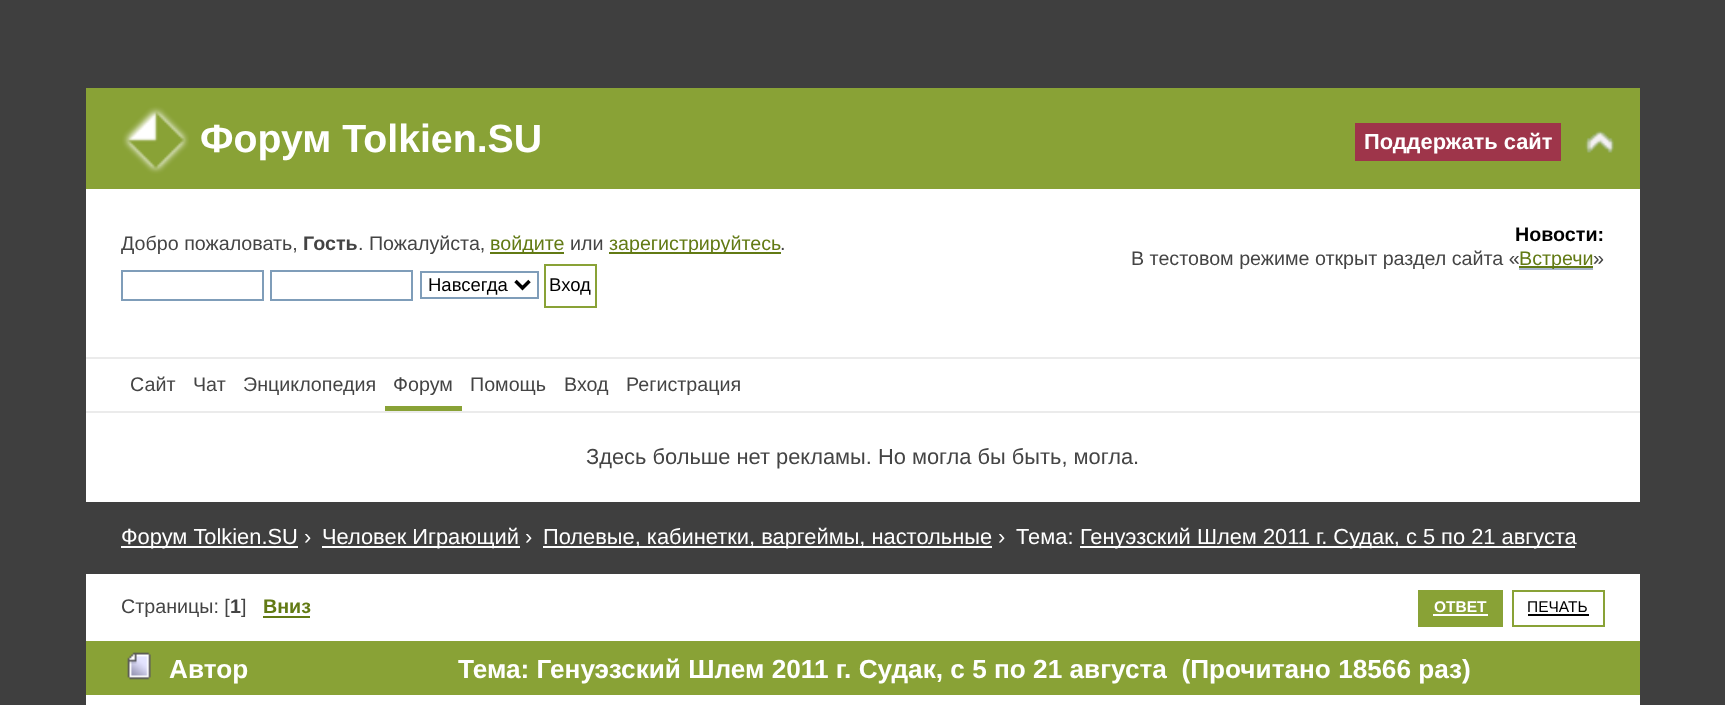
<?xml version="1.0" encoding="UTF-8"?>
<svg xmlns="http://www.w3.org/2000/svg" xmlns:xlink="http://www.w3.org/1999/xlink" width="1725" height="705">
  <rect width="100%" height="100%" fill="#3f3f3f" />
  <rect x="86" y="88" width="1554" height="101" fill="#89a236" />
  <image x="122" y="106" width="67" height="68" xlink:href="image1.png" />
  <rect x="1355" y="123" width="206" height="38" fill="#9e354a" />
  <image x="1585" y="131" width="29" height="22" xlink:href="image2.png" />
  <rect x="86" y="189" width="1554" height="168" fill="#ffffff" />
  <rect x="490" y="252" width="74" height="2" fill="#627a14" />
  <rect x="609" y="252" width="172" height="2" fill="#627a14" />
  <rect x="122" y="271" width="141" height="29" fill="none" stroke="#7f9db9" stroke-width="2" />
  <rect x="271" y="271" width="141" height="29" fill="none" stroke="#7f9db9" stroke-width="2" />
  <rect x="421" y="272" width="117" height="26" fill="none" stroke="#7f9db9" stroke-width="2" />
  <path d="M 515.5 281 l 7 7 l 7 -7" fill="none" stroke="#000000" stroke-width="3.5" />
  <rect x="545" y="265" width="51" height="42" fill="none" stroke="#89a236" stroke-width="2" />
  <rect x="1519" y="268" width="74" height="2" fill="#a8b6cf" />
  <rect x="1519" y="266" width="74" height="2" fill="#627a14" />
  <rect x="86" y="359" width="1554" height="52" fill="#ffffff" />
  <rect x="86" y="357" width="1554" height="2" fill="#ebebeb" />
  <rect x="86" y="411" width="1554" height="2" fill="#ebebeb" />
  <rect x="385" y="406" width="77" height="5" fill="#89a236" />
  <rect x="86" y="413" width="1554" height="292" fill="#ffffff" />
  <rect x="86" y="502" width="1554" height="72" fill="#3f3f3f" />
  <rect x="121" y="546" width="177" height="2" fill="#ffffff" />
  <rect x="322" y="546" width="198" height="2" fill="#ffffff" />
  <rect x="543" y="546" width="449" height="2" fill="#ffffff" />
  <rect x="1080" y="546" width="495" height="2" fill="#ffffff" />
  <rect x="263" y="616" width="47" height="2" fill="#627a14" />
  <rect x="1418" y="590" width="85" height="37" fill="#89a236" />
  <rect x="1433" y="614" width="55" height="2" fill="#ffffff" />
  <rect x="1513" y="591" width="91" height="35" fill="none" stroke="#89a236" stroke-width="2" />
  <rect x="1528" y="614" width="61" height="2" fill="#000000" />
  <rect x="86" y="641" width="1554" height="54" fill="#89a236" />
  <image x="127" y="652" width="24" height="28" xlink:href="image3.png" />
  <text x="200" y="152" style="font-family: Liberation Sans; font-size: 39.25px; font-weight: bold; fill: #ffffff">Форум Tolkien.SU</text>
  <text x="1364" y="149" style="font-family: Liberation Sans; font-size: 21.85px; font-weight: bold; fill: #ffffff">Поддержать сайт</text>
  <text x="121" y="250" style="font-family: Liberation Sans; font-size: 19.7px; fill: #444444">Добро пожаловать,</text>
  <text x="303" y="250" style="font-family: Liberation Sans; font-size: 19.7px; font-weight: bold; fill: #444444">Гость</text>
  <text x="358" y="250" style="font-family: Liberation Sans; font-size: 19.7px; fill: #444444">. Пожалуйста,</text>
  <text x="490" y="250" style="font-family: Liberation Sans; font-size: 19.7px; fill: #627a14">войдите</text>
  <text x="570" y="250" style="font-family: Liberation Sans; font-size: 19.7px; fill: #444444">или</text>
  <text x="609" y="250" style="font-family: Liberation Sans; font-size: 19.7px; fill: #627a14">зарегистрируйтесь</text>
  <text x="780" y="250" style="font-family: Liberation Sans; font-size: 19.7px; fill: #444444">.</text>
  <text x="428" y="291" style="font-family: Liberation Sans; font-size: 18.5px; fill: #000000">Навсегда</text>
  <text x="549" y="291" style="font-family: Liberation Sans; font-size: 18.5px; fill: #000000">Вход</text>
  <text x="1515" y="241" style="font-family: Liberation Sans; font-size: 19.7px; font-weight: bold; fill: #000000">Новости:</text>
  <text x="1131" y="265" style="font-family: Liberation Sans; font-size: 19.7px; fill: #444444">В тестовом режиме открыт раздел сайта «</text>
  <text x="1519" y="265" style="font-family: Liberation Sans; font-size: 19.7px; fill: #627a14">Встречи</text>
  <text x="1593" y="265" style="font-family: Liberation Sans; font-size: 19.7px; fill: #444444">»</text>
  <text x="130" y="391" style="font-family: Liberation Sans; font-size: 19.7px; fill: #444444">Сайт</text>
  <text x="193" y="391" style="font-family: Liberation Sans; font-size: 19.7px; fill: #444444">Чат</text>
  <text x="243" y="391" style="font-family: Liberation Sans; font-size: 19.7px; fill: #444444">Энциклопедия</text>
  <text x="393" y="391" style="font-family: Liberation Sans; font-size: 19.7px; fill: #444444">Форум</text>
  <text x="470" y="391" style="font-family: Liberation Sans; font-size: 19.7px; fill: #444444">Помощь</text>
  <text x="564" y="391" style="font-family: Liberation Sans; font-size: 19.7px; fill: #444444">Вход</text>
  <text x="626" y="391" style="font-family: Liberation Sans; font-size: 19.7px; fill: #444444">Регистрация</text>
  <text x="586" y="464" style="font-family: Liberation Sans; font-size: 21.85px; fill: #444444">Здесь больше нет рекламы. Но могла бы быть, могла.</text>
  <text x="121" y="544" style="font-family: Liberation Sans; font-size: 21.85px; fill: #ffffff">Форум Tolkien.SU ›</text>
  <text x="322" y="544" style="font-family: Liberation Sans; font-size: 21.85px; fill: #ffffff">Человек Играющий ›</text>
  <text x="543" y="544" style="font-family: Liberation Sans; font-size: 21.85px; fill: #ffffff">Полевые, кабинетки, варгеймы, настольные</text>
  <text x="998" y="544" style="font-family: Liberation Sans; font-size: 21.85px; fill: #ffffff">›</text>
  <text x="1016" y="544" style="font-family: Liberation Sans; font-size: 21.85px; fill: #ffffff">Тема:</text>
  <text x="1080" y="544" style="font-family: Liberation Sans; font-size: 21.85px; fill: #ffffff">Генуэзский Шлем 2011 г. Судак, с 5 по 21 августа</text>
  <text x="121" y="613" style="font-family: Liberation Sans; font-size: 19.7px; fill: #444444">Страницы: [</text>
  <text x="230" y="613" style="font-family: Liberation Sans; font-size: 19.7px; font-weight: bold; fill: #444444">1</text>
  <text x="241" y="613" style="font-family: Liberation Sans; font-size: 19.7px; fill: #444444">]</text>
  <text x="263" y="613" style="font-family: Liberation Sans; font-size: 19.7px; font-weight: bold; fill: #627a14">Вниз</text>
  <text x="1434" y="612" style="font-family: Liberation Sans; font-size: 15.5px; font-weight: bold; fill: #ffffff">ОТВЕТ</text>
  <text x="1527" y="612" style="font-family: Liberation Sans; font-size: 15.5px; fill: #000000">ПЕЧАТЬ</text>
  <text x="169" y="678" style="font-family: Liberation Sans; font-size: 26.2px; font-weight: bold; fill: #ffffff">Автор</text>
  <text x="458" y="678" style="font-family: Liberation Sans; font-size: 26.2px; font-weight: bold; fill: #ffffff" xml:space="preserve">Тема: Генуэзский Шлем 2011 г. Судак, с 5 по 21 августа  (Прочитано 18566 раз)</text>
</svg>
